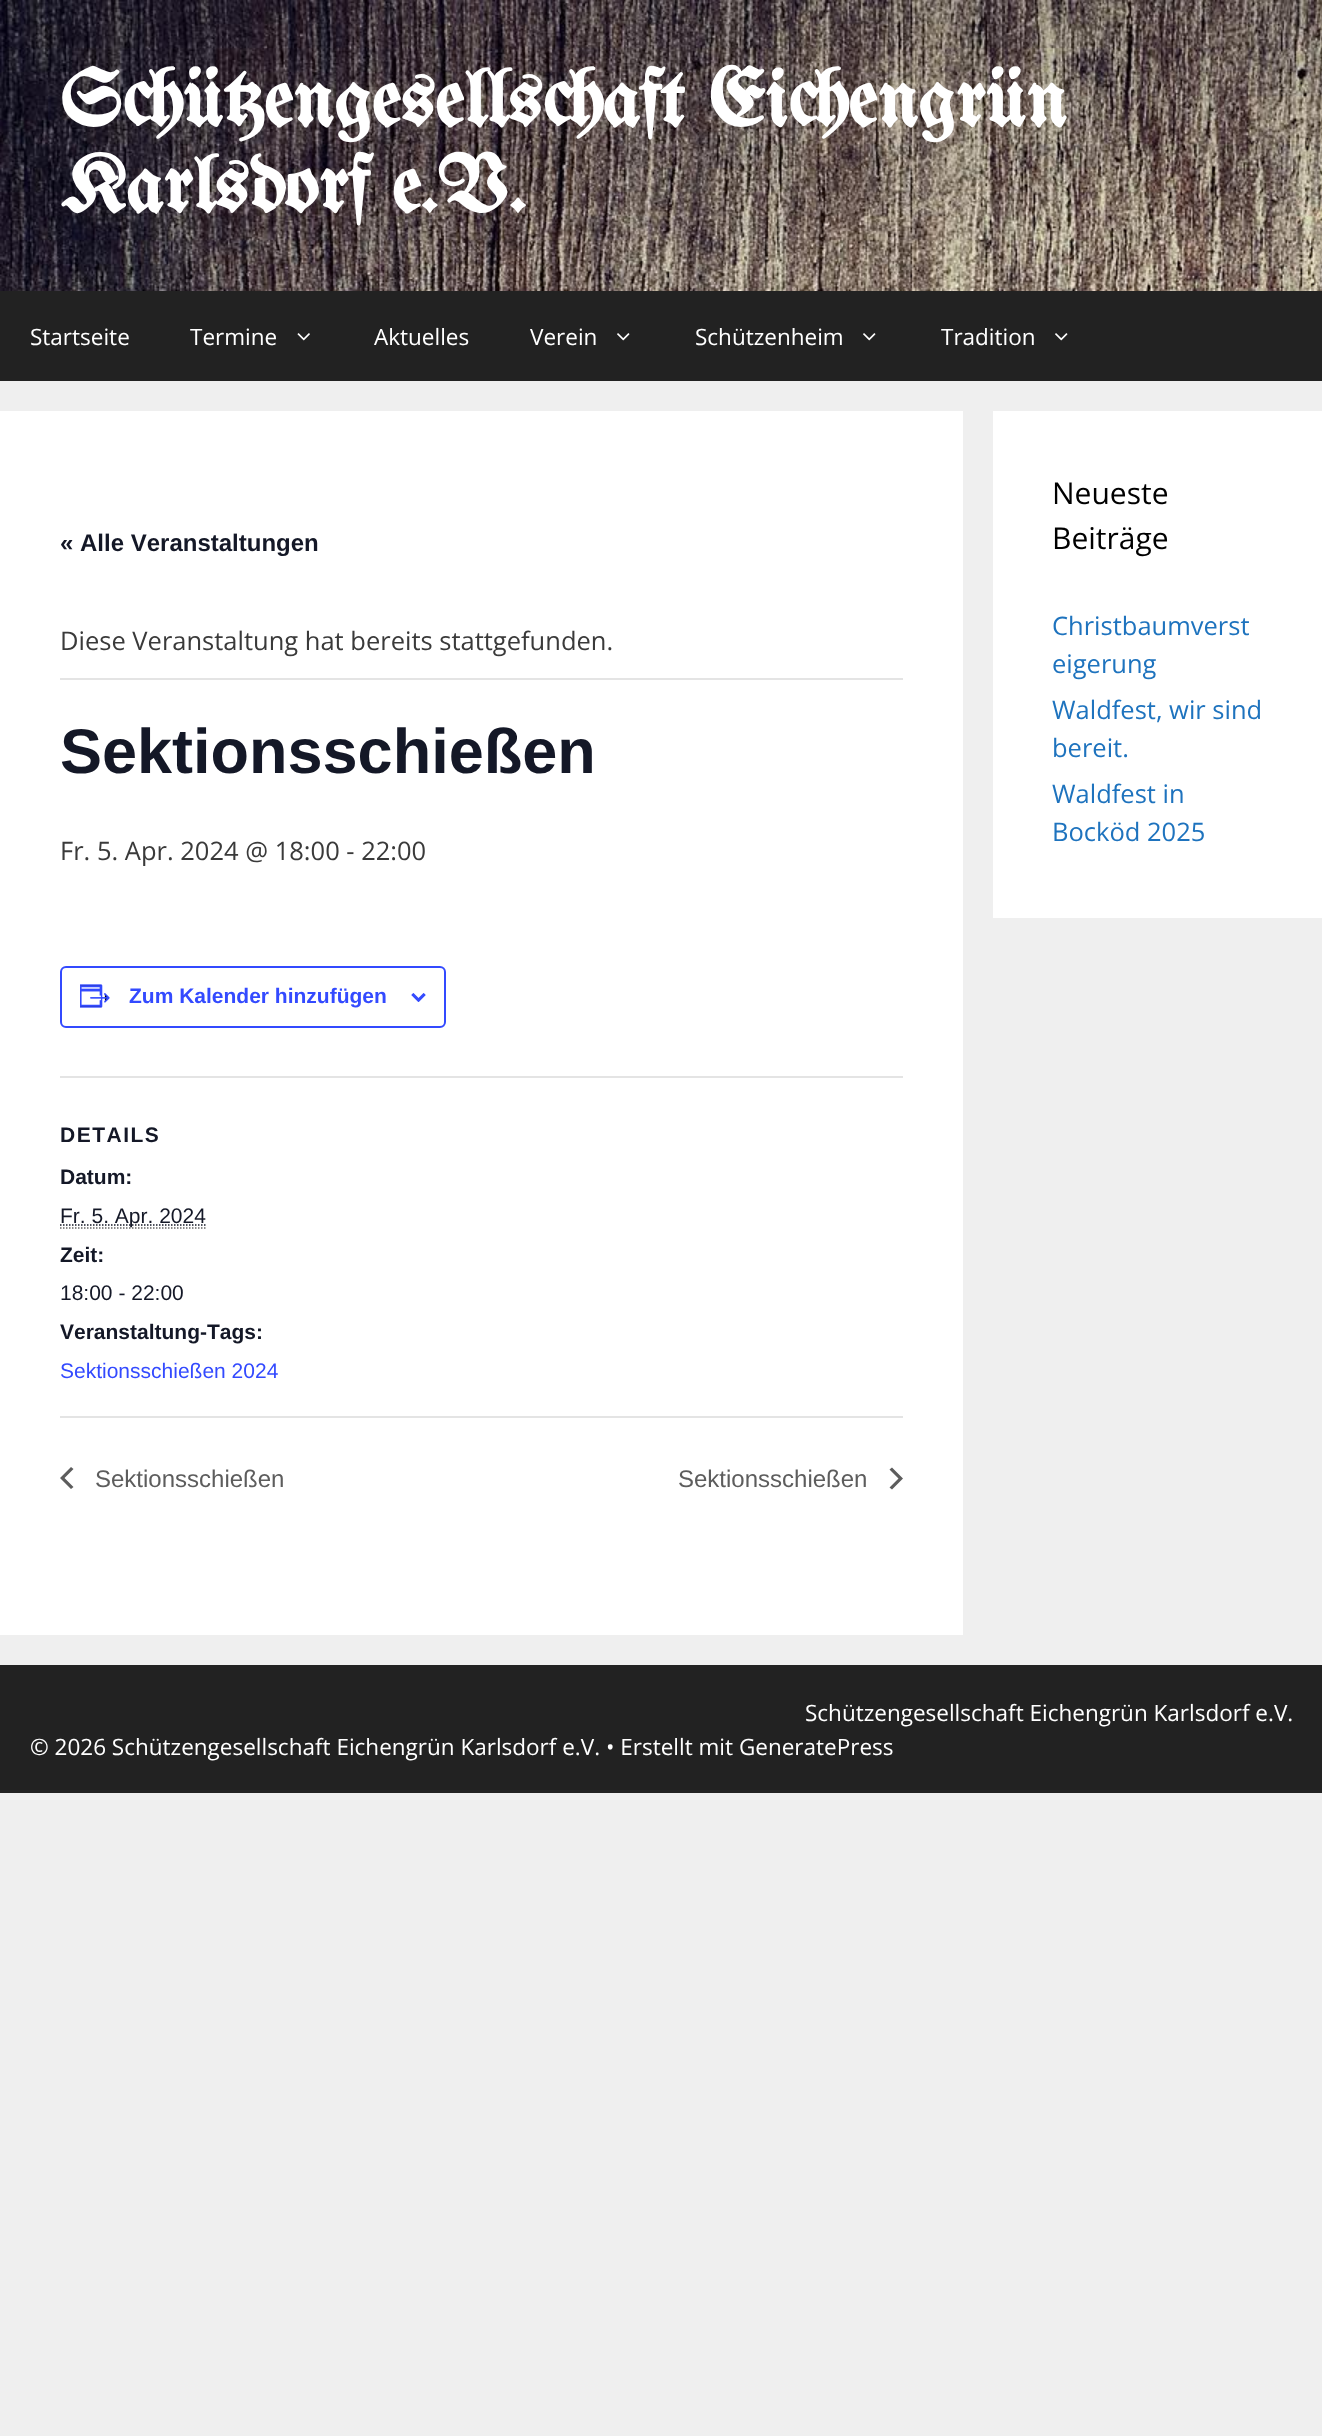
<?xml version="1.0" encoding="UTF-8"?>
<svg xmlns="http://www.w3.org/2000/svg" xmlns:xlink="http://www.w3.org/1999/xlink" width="1322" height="2436">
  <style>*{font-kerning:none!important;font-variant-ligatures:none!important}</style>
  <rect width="100%" height="100%" fill="#efefef" />
  <image x="0" y="0" width="1322" height="291" xlink:href="image1.png" />
  <rect y="291" width="1322" height="90" fill="#222222" />
  <image x="297" y="333" width="13" height="8" xlink:href="image2.png" />
  <image x="617" y="333" width="13" height="8" xlink:href="image3.png" />
  <image x="863" y="333" width="13" height="8" xlink:href="image3.png" />
  <image x="1055" y="333" width="13" height="8" xlink:href="image3.png" />
  <rect y="411" width="963" height="1224" fill="#ffffff" />
  <rect x="60" y="678" width="843" height="2" fill="#e4e4e4" />
  <rect x="61" y="967" width="384" height="60" rx="5" fill="none" stroke="#334aff" stroke-width="2" />
  <image x="80" y="984" width="30" height="24" xlink:href="image4.png" />
  <image x="411" y="993" width="15" height="9" xlink:href="image5.png" />
  <rect x="60" y="1076" width="843" height="2" fill="#e4e4e4" />
  <path d="M 60 1228 h 145.5" fill="none" stroke="#666666" stroke-width="1.5" stroke-dasharray="1.5 1.5" />
  <path d="M 60 1225 h 146" fill="none" stroke="#141827" stroke-width="1.5" stroke-dasharray="1.5 1.5" />
  <rect x="60" y="1416" width="843" height="2" fill="#e4e4e4" />
  <path d="M 73.5 1487 l -2.5 2 l -11 -11 l 11 -11 l 2.5 2 l -9 9 z" fill="#5d5d5d" />
  <path d="M 889.5 1469.5 l 2.5 -2 l 11 11 l -11 11 l -2.5 -2 l 9 -9 z" fill="#5d5d5d" />
  <rect x="993" y="411" width="329" height="507" fill="#ffffff" />
  <rect y="1665" width="1322" height="128" fill="#222222" />
  <text x="60" y="126" style="font-family: UnifrakturMaguntia; font-size: 81px; font-weight: bold; fill: #ffffff">Schützengesellschaft Eichengrün</text>
  <text x="60" y="212" style="font-family: UnifrakturMaguntia; font-size: 81px; font-weight: bold; fill: #ffffff">Karlsdorf e.V.</text>
  <text x="30" y="345" style="font-family: Open Sans; font-size: 22.5px; fill: #ffffff">Startseite</text>
  <text x="190" y="345" style="font-family: Open Sans; font-size: 22.5px; fill: #ffffff">Termine</text>
  <text x="374" y="345" style="font-family: Open Sans; font-size: 22.5px; fill: #ffffff">Aktuelles</text>
  <text x="530" y="345" style="font-family: Open Sans; font-size: 22.5px; fill: #ffffff">Verein</text>
  <text x="695" y="345" style="font-family: Open Sans; font-size: 22.5px; fill: #ffffff">Schützenheim</text>
  <text x="941" y="345" style="font-family: Open Sans; font-size: 22.5px; fill: #ffffff">Tradition</text>
  <text x="60" y="551" style="font-family: Liberation Sans; font-size: 24px; font-weight: bold; fill: #141827">« Alle Veranstaltungen</text>
  <text x="60" y="650" style="font-family: Open Sans; font-size: 25.5px; fill: #3a3a3a">Diese Veranstaltung hat bereits stattgefunden.</text>
  <text x="60" y="773" style="font-family: Liberation Sans; font-size: 63px; font-weight: bold; fill: #141827">Sektionsschießen</text>
  <text x="60" y="860" style="font-family: Open Sans; font-size: 25.5px; fill: #3a3a3a">Fr. 5. Apr. 2024 @ 18:00 - 22:00</text>
  <text x="129" y="1003" style="font-family: Liberation Sans; font-size: 21px; font-weight: bold; fill: #334aff">Zum Kalender hinzufügen</text>
  <text x="60" y="1142" style="font-family: Liberation Sans; font-size: 21px; font-weight: bold; letter-spacing: 1.5px; fill: #141827">DETAILS</text>
  <text x="60" y="1184" style="font-family: Liberation Sans; font-size: 21px; font-weight: bold; fill: #141827">Datum:</text>
  <text x="60" y="1223" style="font-family: Liberation Sans; font-size: 21px; fill: #141827">Fr. 5. Apr. 2024</text>
  <text x="60" y="1262" style="font-family: Liberation Sans; font-size: 21px; font-weight: bold; fill: #141827">Zeit:</text>
  <text x="60" y="1300" style="font-family: Liberation Sans; font-size: 21px; fill: #141827">18:00 - 22:00</text>
  <text x="60" y="1339" style="font-family: Liberation Sans; font-size: 21px; font-weight: bold; fill: #141827">Veranstaltung-Tags:</text>
  <text x="60" y="1378" style="font-family: Liberation Sans; font-size: 21px; fill: #334aff">Sektionsschießen 2024</text>
  <text x="95" y="1487" style="font-family: Liberation Sans; font-size: 24px; fill: #5d5d5d">Sektionsschießen</text>
  <text x="678" y="1487" style="font-family: Liberation Sans; font-size: 24px; fill: #5d5d5d">Sektionsschießen</text>
  <text x="1052" y="504" style="font-family: Open Sans; font-size: 30px; fill: #000000">Neueste</text>
  <text x="1052" y="549" style="font-family: Open Sans; font-size: 30px; fill: #000000">Beiträge</text>
  <text x="1052" y="635" style="font-family: Open Sans; font-size: 25.5px; fill: #1e73be">Christbaumverst</text>
  <text x="1052" y="673" style="font-family: Open Sans; font-size: 25.5px; fill: #1e73be">eigerung</text>
  <text x="1052" y="719" style="font-family: Open Sans; font-size: 25.5px; fill: #1e73be">Waldfest, wir sind</text>
  <text x="1052" y="757" style="font-family: Open Sans; font-size: 25.5px; fill: #1e73be">bereit.</text>
  <text x="1052" y="803" style="font-family: Open Sans; font-size: 25.5px; fill: #1e73be">Waldfest in</text>
  <text x="1052" y="841" style="font-family: Open Sans; font-size: 25.5px; fill: #1e73be">Bocköd 2025</text>
  <text x="805" y="1721" style="font-family: Open Sans; font-size: 22.5px; fill: #ffffff">Schützengesellschaft Eichengrün Karlsdorf e.V.</text>
  <text x="30" y="1755" style="font-family: Open Sans; font-size: 22.5px; fill: #ffffff">© 2026 Schützengesellschaft Eichengrün Karlsdorf e.V. • Erstellt mit GeneratePress</text>
</svg>
